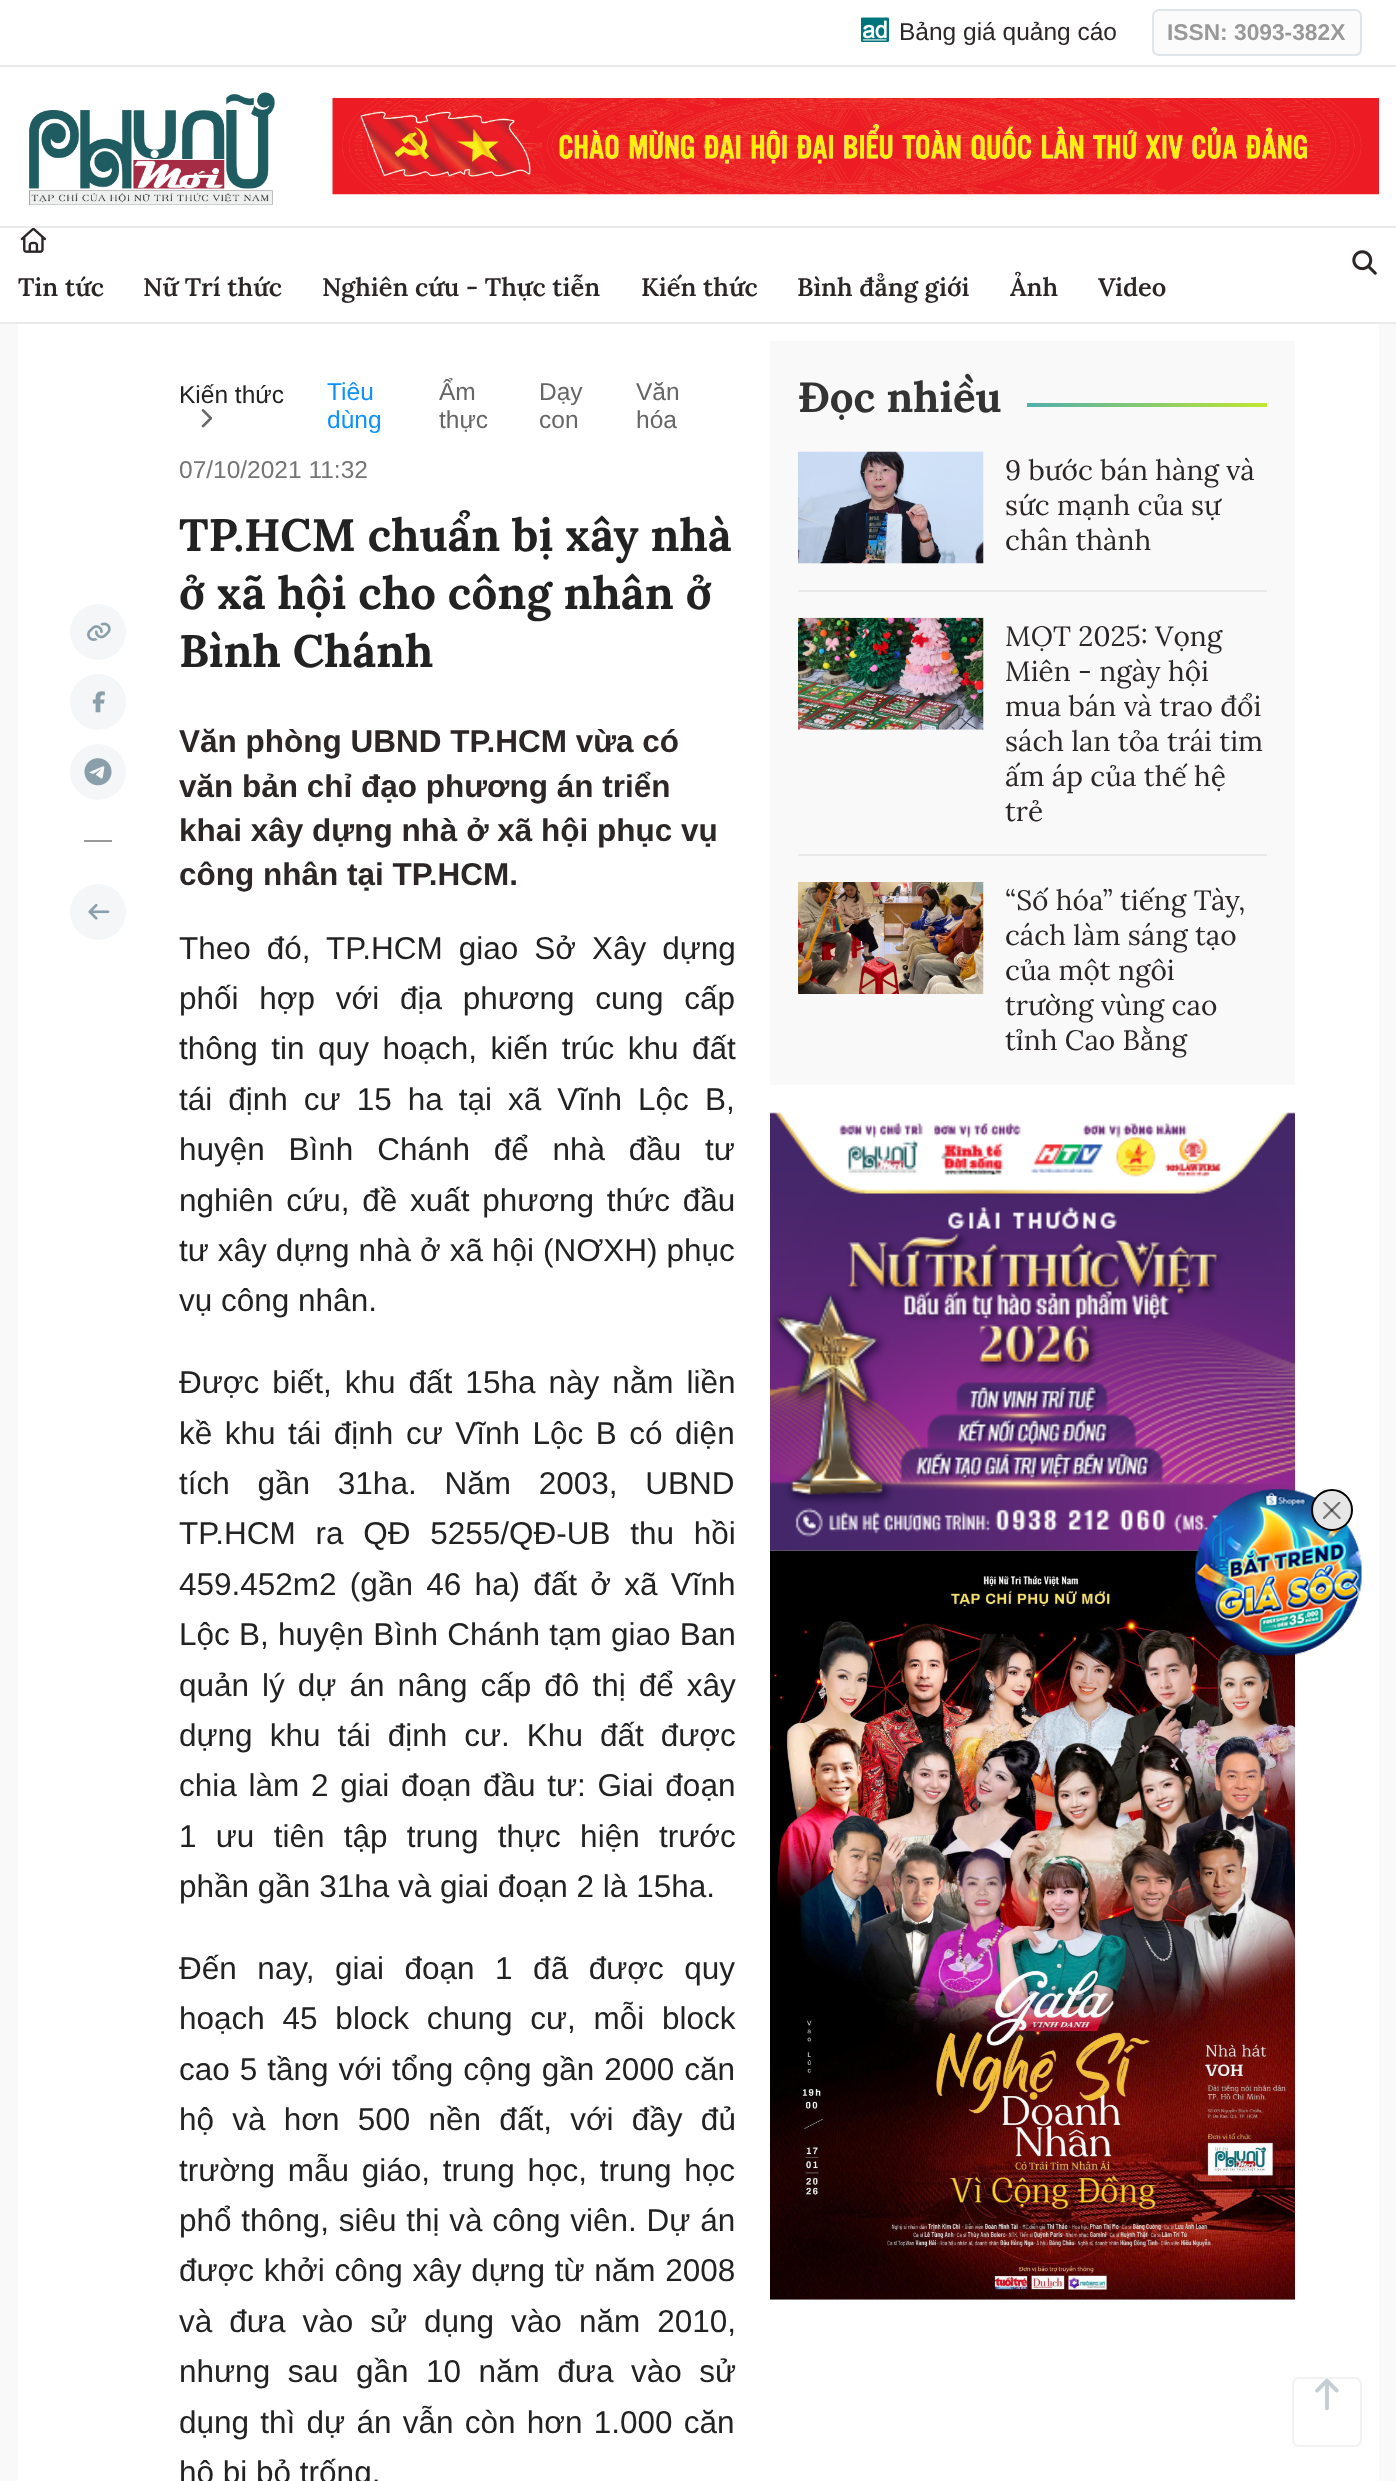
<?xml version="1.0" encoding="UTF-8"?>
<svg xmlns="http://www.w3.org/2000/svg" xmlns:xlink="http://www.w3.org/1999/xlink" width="1396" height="2481">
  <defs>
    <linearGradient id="g1" gradientUnits="userSpaceOnUse" x1="798" y1="393" x2="1267" y2="416"><stop offset="0" stop-color="#0c91ff" /><stop offset="0.23" stop-color="#1893ec" /><stop offset="0.99" stop-color="#bee632" /></linearGradient>
  </defs>
  <rect width="100%" height="100%" fill="#ffffff" />
  <rect y="65" width="1396" height="2" fill="#eaeaea" />
  <image x="861" y="17" width="28" height="25" xlink:href="image1.png" />
  <rect x="1153" y="10" width="208" height="45" rx="6" fill="#fbfbfb" stroke="#dee5eb" stroke-width="2" />
  <rect y="226" width="1396" height="2" fill="#eaeaea" />
  <image x="29" y="92" width="246" height="113" xlink:href="image2.png" />
  <image x="332" y="98" width="1047" height="97" xlink:href="image3.png" />
  <rect y="322" width="1396" height="2" fill="#eaeaea" />
  <image x="1352" y="250" width="25" height="25" xlink:href="image4.png" />
  <image x="20" y="228" width="26" height="25" xlink:href="image5.png" />
  <rect y="324" width="1396" height="2157" fill="#f9f9f9" />
  <rect x="18" y="324" width="1361" height="2157" fill="#ffffff" />
  <circle cx="98" cy="632" r="28" fill="#f4f6f8" />
  <image x="87" y="622" width="24" height="19" xlink:href="image6.png" />
  <circle cx="98" cy="702" r="28" fill="#f4f6f8" />
  <image x="92" y="691" width="13" height="22" xlink:href="image7.png" />
  <circle cx="98" cy="772" r="28" fill="#f4f6f8" />
  <image x="84" y="758" width="28" height="28" xlink:href="image8.png" />
  <rect x="84" y="840" width="28" height="2" fill="#999999" />
  <circle cx="98" cy="912" r="28" fill="#f4f6f8" />
  <image x="88" y="903" width="22" height="17" xlink:href="image9.png" />
  <image x="201" y="409" width="12" height="19" xlink:href="image10.png" />
  <rect x="770" y="341" width="525" height="744" fill="#f9f9f9" />
  <rect x="1027" y="403" width="240" height="4" fill="url(#g1)" />
  <rect x="798" y="590" width="469" height="2" fill="#eaeaea" />
  <image x="798" y="451" width="186" height="113" xlink:href="image11.png" />
  <rect x="798" y="854" width="469" height="2" fill="#eaeaea" />
  <image x="798" y="617" width="186" height="113" xlink:href="image12.png" />
  <image x="798" y="882" width="186" height="112" xlink:href="image13.png" />
  <image x="770" y="1112" width="525" height="439" xlink:href="image14.png" />
  <image x="770" y="1550" width="525" height="750" xlink:href="image15.png" />
  <image x="1195" y="1489" width="167" height="167" xlink:href="image16.png" />
  <circle cx="1332" cy="1510" r="20" fill="#e6e6e6" stroke="#000000" stroke-width="2" />
  <image x="1323" y="1502" width="18" height="17" xlink:href="image17.png" />
  <rect x="1293" y="2378" width="68" height="68" rx="6" fill="none" stroke="#f2f2f2" stroke-width="2" />
  <image x="1315" y="2378" width="24" height="33" xlink:href="image18.png" />
  <text x="899" y="40" style="font-family: Liberation Sans; font-size: 24.5px; fill: #2c2626">Bảng giá quảng cáo</text>
  <text x="1167" y="40" style="font-family: Liberation Sans; font-size: 22.75px; font-weight: bold; fill: #999999">ISSN: 3093-382X</text>
  <text x="18" y="296" style="font-family: Lora; font-size: 25.4px; font-weight: 600; fill: #2c2626">Tin tức</text>
  <text x="143" y="296" style="font-family: Lora; font-size: 25.4px; font-weight: 600; fill: #2c2626">Nữ Trí thức</text>
  <text x="322" y="296" style="font-family: Lora; font-size: 25.4px; font-weight: 600; fill: #2c2626">Nghiên cứu - Thực tiễn</text>
  <text x="641" y="296" style="font-family: Lora; font-size: 25.4px; font-weight: 600; fill: #2c2626">Kiến thức</text>
  <text x="797" y="296" style="font-family: Lora; font-size: 25.4px; font-weight: 600; fill: #2c2626">Bình đẳng giới</text>
  <text x="1010" y="296" style="font-family: Lora; font-size: 25.4px; font-weight: 600; fill: #2c2626">Ảnh</text>
  <text x="1098" y="296" style="font-family: Lora; font-size: 25.4px; font-weight: 600; fill: #2c2626">Video</text>
  <text x="179" y="403" style="font-family: Liberation Sans; font-size: 24.5px; fill: #222222">Kiến thức</text>
  <text x="327" y="400" style="font-family: Liberation Sans; font-size: 24.5px; fill: #0c91ff">Tiêu</text>
  <text x="327" y="428" style="font-family: Liberation Sans; font-size: 24.5px; fill: #0c91ff">dùng</text>
  <text x="439" y="400" style="font-family: Liberation Sans; font-size: 24.5px; fill: #666666">Ẩm</text>
  <text x="439" y="428" style="font-family: Liberation Sans; font-size: 24.5px; fill: #666666">thực</text>
  <text x="539" y="400" style="font-family: Liberation Sans; font-size: 24.5px; fill: #666666">Dạy</text>
  <text x="539" y="428" style="font-family: Liberation Sans; font-size: 24.5px; fill: #666666">con</text>
  <text x="636" y="400" style="font-family: Liberation Sans; font-size: 24.5px; fill: #666666">Văn</text>
  <text x="636" y="428" style="font-family: Liberation Sans; font-size: 24.5px; fill: #666666">hóa</text>
  <text x="179" y="478" style="font-family: Liberation Sans; font-size: 24.5px; fill: #757575">07/10/2021 11:32</text>
  <text x="179" y="551" style="font-family: Lora; font-size: 45.5px; font-weight: bold; fill: #222222">TP.HCM chuẩn bị xây nhà</text>
  <text x="179" y="609" style="font-family: Lora; font-size: 45.5px; font-weight: bold; fill: #222222">ở xã hội cho công nhân ở</text>
  <text x="179" y="667" style="font-family: Lora; font-size: 45.5px; font-weight: bold; fill: #222222">Bình Chánh</text>
  <text x="179" y="752" style="font-family: Liberation Sans; font-size: 31.5px; font-weight: bold; fill: #2c2626">Văn phòng UBND TP.HCM vừa có</text>
  <text x="179" y="797" style="font-family: Liberation Sans; font-size: 31.5px; font-weight: bold; fill: #2c2626">văn bản chỉ đạo phương án triển</text>
  <text x="179" y="841" style="font-family: Liberation Sans; font-size: 31.5px; font-weight: bold; fill: #2c2626">khai xây dựng nhà ở xã hội phục vụ</text>
  <text x="179" y="885" style="font-family: Liberation Sans; font-size: 31.5px; font-weight: bold; fill: #2c2626">công nhân tại TP.HCM.</text>
  <text x="179" y="959" word-spacing="7.25" style="font-family: Liberation Sans; font-size: 31.5px; fill: #222222">Theo đó, TP.HCM giao Sở Xây dựng</text>
  <text x="179" y="1009" word-spacing="12" style="font-family: Liberation Sans; font-size: 31.5px; fill: #222222">phối hợp với địa phương cung cấp</text>
  <text x="179" y="1059" word-spacing="4.75" style="font-family: Liberation Sans; font-size: 31.5px; fill: #222222">thông tin quy hoạch, kiến trúc khu đất</text>
  <text x="179" y="1110" word-spacing="7.25" style="font-family: Liberation Sans; font-size: 31.5px; fill: #222222">tái định cư 15 ha tại xã Vĩnh Lộc B,</text>
  <text x="179" y="1160" word-spacing="15" style="font-family: Liberation Sans; font-size: 31.5px; fill: #222222">huyện Bình Chánh để nhà đầu tư</text>
  <text x="179" y="1211" word-spacing="4" style="font-family: Liberation Sans; font-size: 31.5px; fill: #222222">nghiên cứu, đề xuất phương thức đầu</text>
  <text x="179" y="1261" word-spacing="0.25" style="font-family: Liberation Sans; font-size: 31.5px; fill: #222222">tư xây dựng nhà ở xã hội (NƠXH) phục</text>
  <text x="179" y="1311" style="font-family: Liberation Sans; font-size: 31.5px; fill: #222222">vụ công nhân.</text>
  <text x="179" y="1393" word-spacing="4.25" style="font-family: Liberation Sans; font-size: 31.5px; fill: #222222">Được biết, khu đất 15ha này nằm liền</text>
  <text x="179" y="1444" word-spacing="3.75" style="font-family: Liberation Sans; font-size: 31.5px; fill: #222222">kề khu tái định cư Vĩnh Lộc B có diện</text>
  <text x="179" y="1494" word-spacing="19" style="font-family: Liberation Sans; font-size: 31.5px; fill: #222222">tích gần 31ha. Năm 2003, UBND</text>
  <text x="179" y="1544" word-spacing="11" style="font-family: Liberation Sans; font-size: 31.5px; fill: #222222">TP.HCM ra QĐ 5255/QĐ-UB thu hồi</text>
  <text x="179" y="1595" word-spacing="4.5" style="font-family: Liberation Sans; font-size: 31.5px; fill: #222222">459.452m2 (gần 46 ha) đất ở xã Vĩnh</text>
  <text x="179" y="1645" word-spacing="0.5" style="font-family: Liberation Sans; font-size: 31.5px; fill: #222222">Lộc B, huyện Bình Chánh tạm giao Ban</text>
  <text x="179" y="1696" word-spacing="4.25" style="font-family: Liberation Sans; font-size: 31.5px; fill: #222222">quản lý dự án nâng cấp đô thị để xây</text>
  <text x="179" y="1746" word-spacing="8.25" style="font-family: Liberation Sans; font-size: 31.5px; fill: #222222">dựng khu tái định cư. Khu đất được</text>
  <text x="179" y="1796" word-spacing="3" style="font-family: Liberation Sans; font-size: 31.5px; fill: #222222">chia làm 2 giai đoạn đầu tư: Giai đoạn</text>
  <text x="179" y="1847" word-spacing="10.5" style="font-family: Liberation Sans; font-size: 31.5px; fill: #222222">1 ưu tiên tập trung thực hiện trước</text>
  <text x="179" y="1897" style="font-family: Liberation Sans; font-size: 31.5px; fill: #222222">phần gần 31ha và giai đoạn 2 là 15ha.</text>
  <text x="179" y="1979" word-spacing="11.75" style="font-family: Liberation Sans; font-size: 31.5px; fill: #222222">Đến nay, giai đoạn 1 đã được quy</text>
  <text x="179" y="2029" word-spacing="9" style="font-family: Liberation Sans; font-size: 31.5px; fill: #222222">hoạch 45 block chung cư, mỗi block</text>
  <text x="179" y="2080" word-spacing="1.25" style="font-family: Liberation Sans; font-size: 31.5px; fill: #222222">cao 5 tầng với tổng cộng gần 2000 căn</text>
  <text x="179" y="2130" word-spacing="9.5" style="font-family: Liberation Sans; font-size: 31.5px; fill: #222222">hộ và hơn 500 nền đất, với đầy đủ</text>
  <text x="179" y="2181" word-spacing="4" style="font-family: Liberation Sans; font-size: 31.5px; fill: #222222">trường mẫu giáo, trung học, trung học</text>
  <text x="179" y="2231" word-spacing="1" style="font-family: Liberation Sans; font-size: 31.5px; fill: #222222">phổ thông, siêu thị và công viên. Dự án</text>
  <text x="179" y="2281" word-spacing="1" style="font-family: Liberation Sans; font-size: 31.5px; fill: #222222">được khởi công xây dựng từ năm 2008</text>
  <text x="179" y="2332" word-spacing="8.25" style="font-family: Liberation Sans; font-size: 31.5px; fill: #222222">và đưa vào sử dụng vào năm 2010,</text>
  <text x="179" y="2382" word-spacing="8.75" style="font-family: Liberation Sans; font-size: 31.5px; fill: #222222">nhưng sau gần 10 năm đưa vào sử</text>
  <text x="179" y="2433" word-spacing="2.5" style="font-family: Liberation Sans; font-size: 31.5px; fill: #222222">dụng thì dự án vẫn còn hơn 1.000 căn</text>
  <text x="179" y="2483" style="font-family: Liberation Sans; font-size: 31.5px; fill: #222222">hộ bị bỏ trống.</text>
  <text x="798" y="412" style="font-family: Lora; font-size: 42px; font-weight: bold; fill: #333333">Đọc nhiều</text>
  <text x="1005" y="480" style="font-family: Lora; font-size: 28px; fill: #2c2626">9 bước bán hàng và</text>
  <text x="1005" y="515" style="font-family: Lora; font-size: 28px; fill: #2c2626">sức mạnh của sự</text>
  <text x="1005" y="550" style="font-family: Lora; font-size: 28px; fill: #2c2626">chân thành</text>
  <text x="1005" y="646" style="font-family: Lora; font-size: 28px; fill: #2c2626">MỌT 2025: Vọng</text>
  <text x="1005" y="681" style="font-family: Lora; font-size: 28px; fill: #2c2626">Miên - ngày hội</text>
  <text x="1005" y="716" style="font-family: Lora; font-size: 28px; fill: #2c2626">mua bán và trao đổi</text>
  <text x="1005" y="751" style="font-family: Lora; font-size: 28px; fill: #2c2626">sách lan tỏa trái tim</text>
  <text x="1005" y="786" style="font-family: Lora; font-size: 28px; fill: #2c2626">ấm áp của thế hệ</text>
  <text x="1005" y="821" style="font-family: Lora; font-size: 28px; fill: #2c2626">trẻ</text>
  <text x="1005" y="910" style="font-family: Lora; font-size: 28px; fill: #2c2626">“Số hóa” tiếng Tày,</text>
  <text x="1005" y="945" style="font-family: Lora; font-size: 28px; fill: #2c2626">cách làm sáng tạo</text>
  <text x="1005" y="980" style="font-family: Lora; font-size: 28px; fill: #2c2626">của một ngôi</text>
  <text x="1005" y="1015" style="font-family: Lora; font-size: 28px; fill: #2c2626">trường vùng cao</text>
  <text x="1005" y="1050" style="font-family: Lora; font-size: 28px; fill: #2c2626">tỉnh Cao Bằng</text>
</svg>
